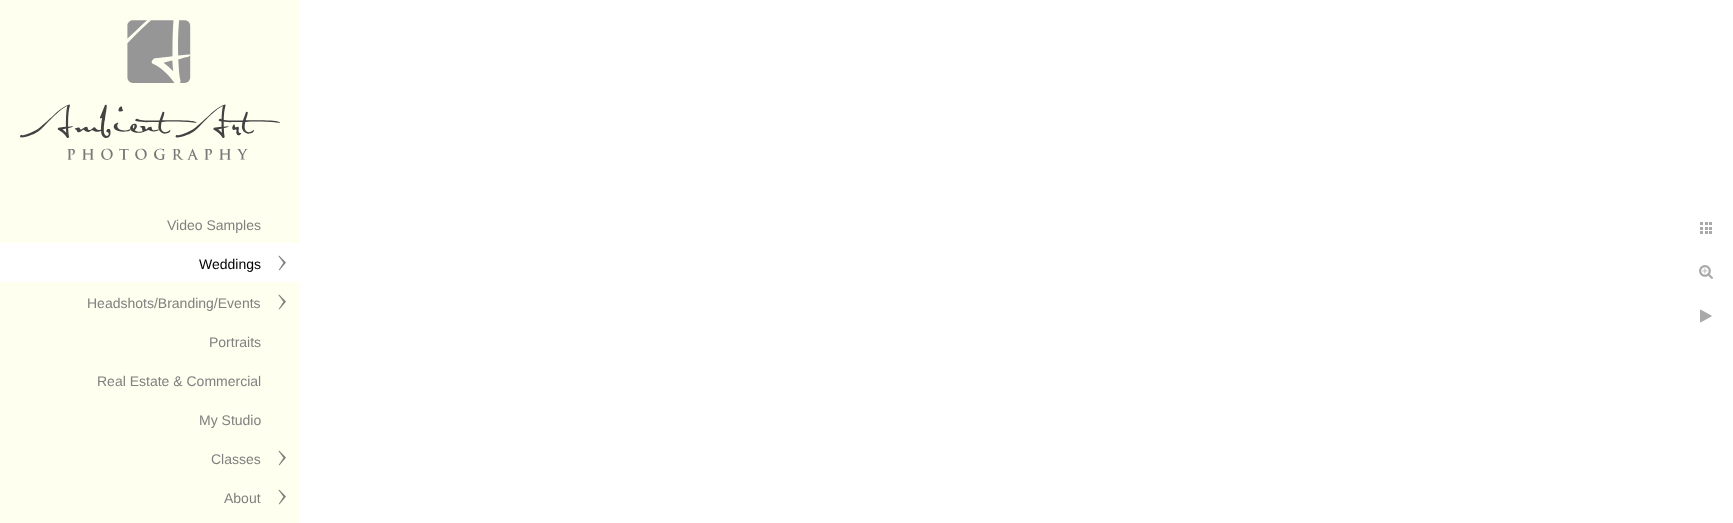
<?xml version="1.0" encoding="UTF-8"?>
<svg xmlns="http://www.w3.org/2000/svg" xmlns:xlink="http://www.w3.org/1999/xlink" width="1733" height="523">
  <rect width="100%" height="100%" fill="#ffffff" />
  <rect width="300" height="523" fill="#fffff0" />
  <image x="20" y="20" width="260" height="140" xlink:href="image1.png" />
  <rect y="243" width="300" height="39" fill="#ffffff" />
  <image x="278" y="255" width="8" height="16" xlink:href="image2.png" />
  <image x="278" y="294" width="8" height="16" xlink:href="image3.png" />
  <image x="278" y="450" width="8" height="16" xlink:href="image3.png" />
  <image x="278" y="489" width="8" height="16" xlink:href="image3.png" />
  <image x="1700" y="222" width="12" height="12" xlink:href="image4.png" />
  <image x="1699" y="265" width="14" height="14" xlink:href="image5.png" />
  <image x="1700" y="309" width="12" height="14" xlink:href="image6.png" />
  <text x="167" y="230" style="font-family: Liberation Sans; font-size: 14px; fill: #808080">Video Samples</text>
  <text x="199" y="269" style="font-family: Liberation Sans; font-size: 14px; fill: #000000">Weddings</text>
  <text x="87" y="308" style="font-family: Liberation Sans; font-size: 14px; fill: #808080">Headshots/Branding/Events</text>
  <text x="209" y="347" style="font-family: Liberation Sans; font-size: 14px; fill: #808080">Portraits</text>
  <text x="97" y="386" style="font-family: Liberation Sans; font-size: 14px; fill: #808080">Real Estate &amp; Commercial</text>
  <text x="199" y="425" style="font-family: Liberation Sans; font-size: 14px; fill: #808080">My Studio</text>
  <text x="211" y="464" style="font-family: Liberation Sans; font-size: 14px; fill: #808080">Classes</text>
  <text x="224" y="503" style="font-family: Liberation Sans; font-size: 14px; fill: #808080">About</text>
</svg>
